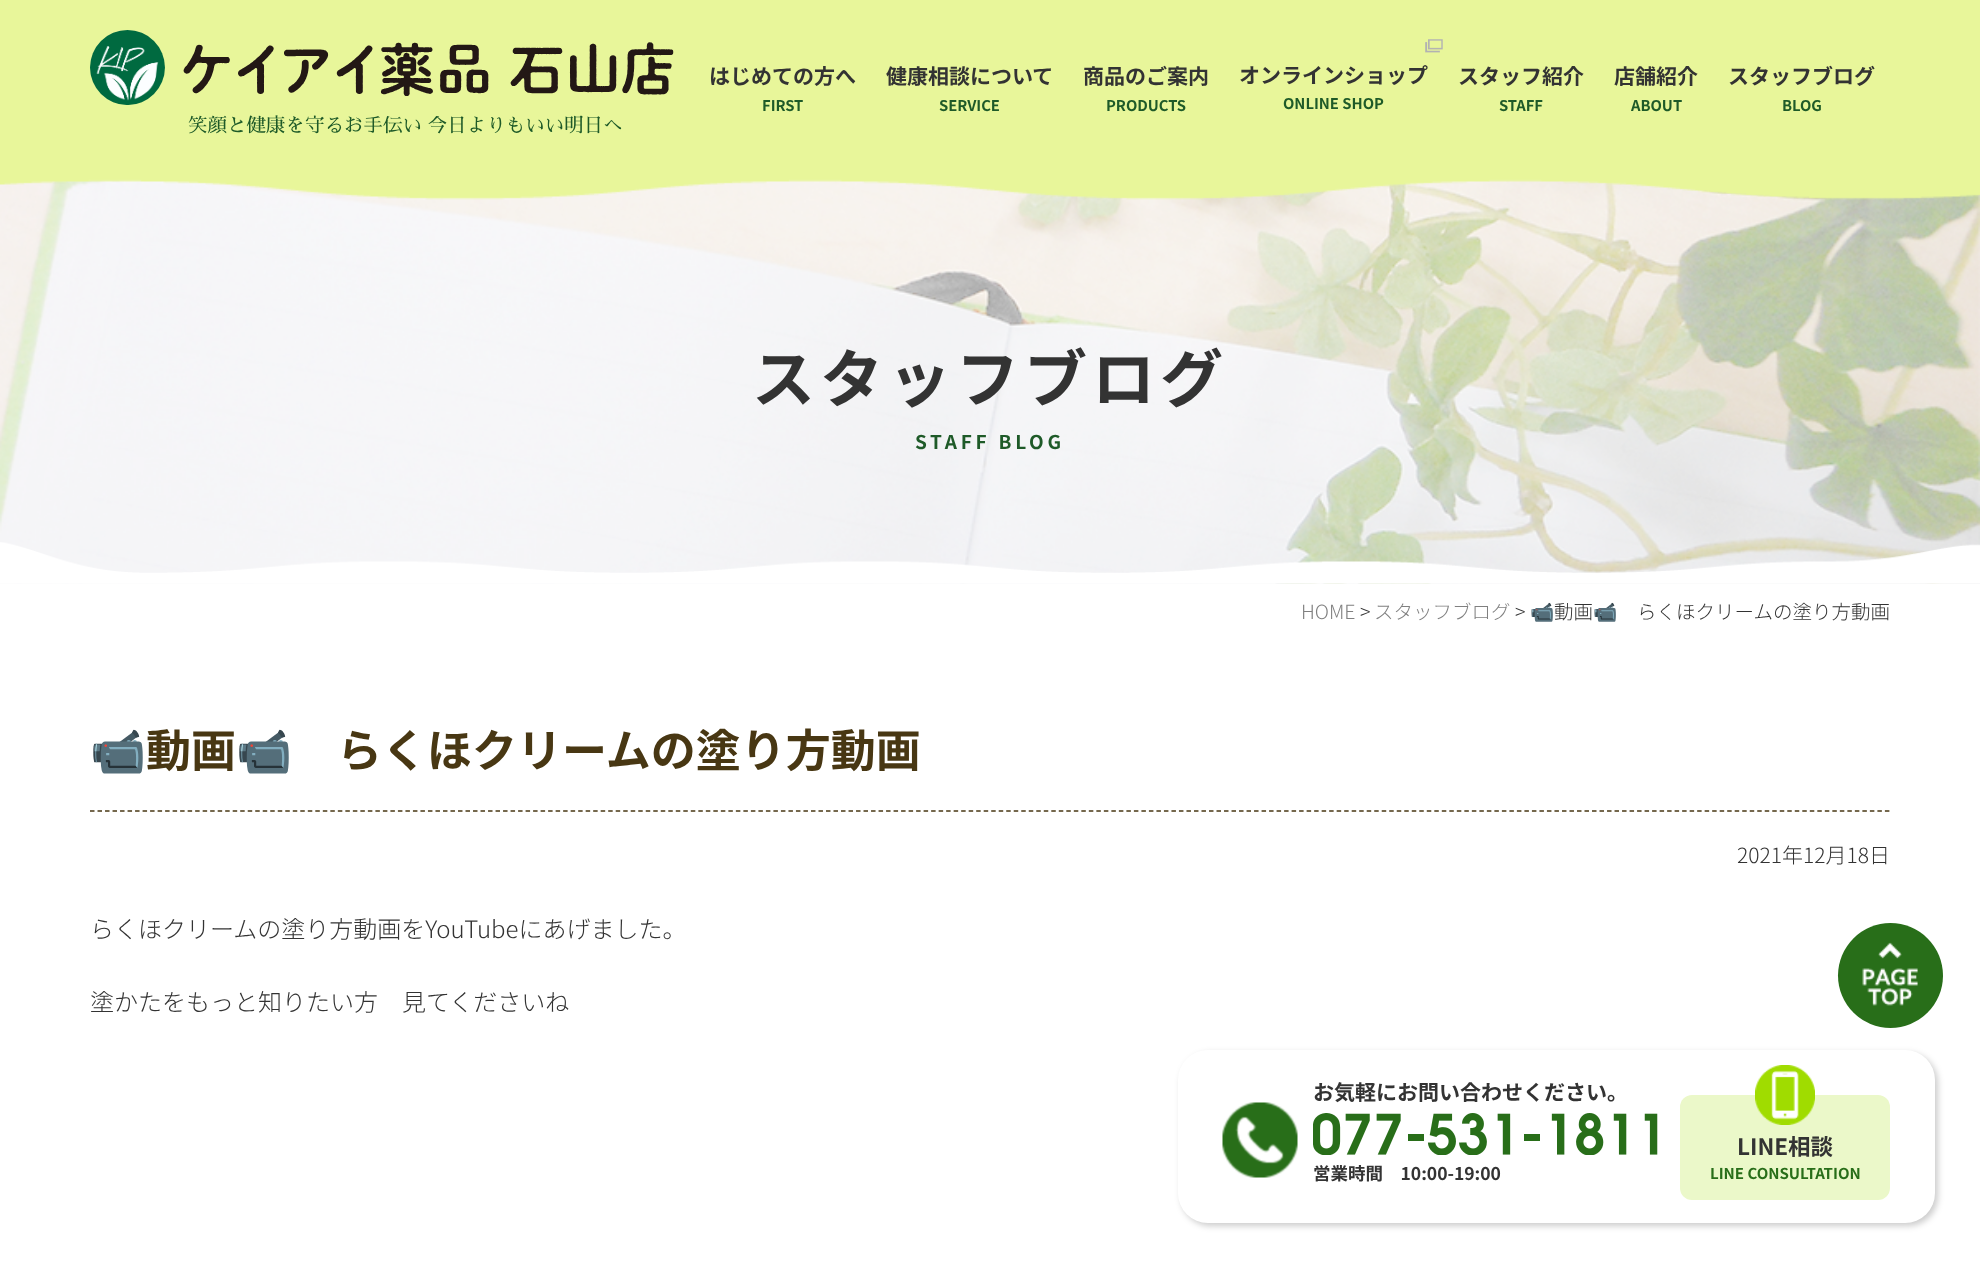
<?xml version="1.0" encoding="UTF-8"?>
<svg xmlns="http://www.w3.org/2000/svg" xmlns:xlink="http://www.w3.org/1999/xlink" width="1980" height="1267">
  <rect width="100%" height="100%" fill="#ffffff" />
  <rect width="1980" height="164" fill="#e8f69a" />
  <image x="1425" y="39" width="18" height="14" xlink:href="image1.png" />
  <image x="90" y="30" width="584" height="75" xlink:href="image2.png" />
  <image x="0" y="179" width="1980" height="405" xlink:href="image4.png" />
  <image x="0" y="164" width="1980" height="36" xlink:href="image3.png" />
  <image x="0" y="542" width="1980" height="42" xlink:href="image5.png" />
  <path d="M 90 811 h 1800" fill="none" stroke="#483713" stroke-width="1.5" stroke-dasharray="4.5 3.01" />
  <circle cx="1890.5" cy="975.5" r="52.5" fill="#286e19" />
  <image x="1862" y="942" width="56" height="64" xlink:href="image6.png" />
  <rect x="1181" y="1053" width="757" height="173" rx="30" fill="#000000" fill-opacity="0.2" filter="blur(3px)" />
  <rect x="1178" y="1050" width="757" height="173" rx="30" fill="#ffffff" />
  <image x="1222" y="1102" width="76" height="76" xlink:href="image7.png" />
  <image x="1313" y="1113" width="345" height="42" xlink:href="image8.png" />
  <rect x="1680" y="1095" width="210" height="105" rx="12" fill="#ebf8c9" />
  <image x="1755" y="1065" width="60" height="60" xlink:href="image9.png" />
  <text x="709" y="84" style="font-family: Noto Sans JP; font-size: 21px; font-weight: bold; fill: #333333">はじめての方へ</text>
  <text x="762" y="111" style="font-family: Noto Sans JP; font-size: 14.75px; font-weight: bold; fill: #1e5a28">FIRST</text>
  <text x="886" y="84" style="font-family: Noto Sans JP; font-size: 21px; font-weight: bold; fill: #333333">健康相談について</text>
  <text x="939" y="111" style="font-family: Noto Sans JP; font-size: 14.75px; font-weight: bold; fill: #1e5a28">SERVICE</text>
  <text x="1083" y="84" style="font-family: Noto Sans JP; font-size: 21px; font-weight: bold; fill: #333333">商品のご案内</text>
  <text x="1106" y="111" style="font-family: Noto Sans JP; font-size: 14.75px; font-weight: bold; fill: #1e5a28">PRODUCTS</text>
  <text x="1239" y="83" style="font-family: Noto Sans JP; font-size: 21px; font-weight: bold; fill: #333333">オンラインショップ</text>
  <text x="1283" y="109" style="font-family: Noto Sans JP; font-size: 14.75px; font-weight: bold; fill: #1e5a28">ONLINE SHOP</text>
  <text x="1458" y="84" style="font-family: Noto Sans JP; font-size: 21px; font-weight: bold; fill: #333333">スタッフ紹介</text>
  <text x="1499" y="111" style="font-family: Noto Sans JP; font-size: 14.75px; font-weight: bold; fill: #1e5a28">STAFF</text>
  <text x="1614" y="84" style="font-family: Noto Sans JP; font-size: 21px; font-weight: bold; fill: #333333">店舗紹介</text>
  <text x="1631" y="111" style="font-family: Noto Sans JP; font-size: 14.75px; font-weight: bold; fill: #1e5a28">ABOUT</text>
  <text x="1728" y="84" style="font-family: Noto Sans JP; font-size: 21px; font-weight: bold; fill: #333333">スタッフブログ</text>
  <text x="1782" y="111" style="font-family: Noto Sans JP; font-size: 14.75px; font-weight: bold; fill: #1e5a28">BLOG</text>
  <text x="188" y="132" style="font-family: Sawarabi Mincho; font-size: 19.5px; fill: #1e5a28">笑顔と健康を守るお手伝い 今日よりもいい明日へ</text>
  <text x="752" y="402" style="font-family: Noto Sans JP; font-size: 63px; font-weight: bold; letter-spacing: 5px; fill: #333333">スタッフブログ</text>
  <text x="915" y="449" style="font-family: Noto Sans JP; font-size: 19px; font-weight: bold; letter-spacing: 3.75px; fill: #1e5a28">STAFF BLOG</text>
  <text x="1301" y="619" style="font-family: Noto Sans JP; font-size: 19.5px; font-weight: 300; fill: #808080">HOME</text>
  <text x="1360" y="619" style="font-family: Noto Sans JP; font-size: 19.5px; font-weight: 300; fill: #333333">&gt;</text>
  <text x="1374" y="619" style="font-family: Noto Sans JP; font-size: 19.5px; font-weight: 300; fill: #808080">スタッフブログ</text>
  <text x="1515" y="619" style="font-family: Noto Sans JP; font-size: 19.5px; font-weight: 300; fill: #333333">&gt;</text>
  <text x="1530" y="619" style="font-family: Noto Color Emoji; font-size: 19.5px; fill: #333333">📹</text>
  <text x="1554" y="619" style="font-family: Noto Sans JP; font-size: 19.5px; font-weight: 300; fill: #333333">動画</text>
  <text x="1593" y="619" style="font-family: Noto Color Emoji; font-size: 19.5px; fill: #333333">📹</text>
  <text x="1637" y="619" style="font-family: Noto Sans JP; font-size: 19.5px; font-weight: 300; fill: #333333">らくほクリームの塗り方動画</text>
  <text x="90" y="767" style="font-family: Noto Color Emoji; font-size: 45px; font-weight: bold; fill: #483713">📹</text>
  <text x="146" y="767" style="font-family: Noto Sans JP; font-size: 45px; font-weight: bold; fill: #483713">動画</text>
  <text x="236" y="767" style="font-family: Noto Color Emoji; font-size: 45px; font-weight: bold; fill: #483713">📹</text>
  <text x="337" y="767" style="font-family: Noto Sans JP; font-size: 45px; font-weight: bold; fill: #483713">らくほクリームの塗り方動画</text>
  <text x="1737" y="863" style="font-family: Noto Sans JP; font-size: 21px; font-weight: 300; fill: #333333">2021年12月18日</text>
  <text x="90" y="938" style="font-family: Noto Sans JP; font-size: 24px; font-weight: 300; fill: #333333">らくほクリームの塗り方動画をYouTubeにあげました。</text>
  <text x="90" y="1011" style="font-family: Noto Sans JP; font-size: 24px; font-weight: 300; fill: #333333">塗かたをもっと知りたい方　見てくださいね</text>
  <text x="1313" y="1100" style="font-family: Noto Sans JP; font-size: 21px; font-weight: bold; fill: #333333">お気軽にお問い合わせください。</text>
  <text x="1313" y="1180" style="font-family: Noto Sans JP; font-size: 17.5px; font-weight: bold; fill: #333333">営業時間　10:00-19:00</text>
  <text x="1737" y="1155" style="font-family: Noto Sans JP; font-size: 22.5px; font-weight: bold; fill: #333333">LINE相談</text>
  <text x="1710" y="1179" style="font-family: Noto Sans JP; font-size: 15px; font-weight: bold; fill: #286e19">LINE CONSULTATION</text>
</svg>
